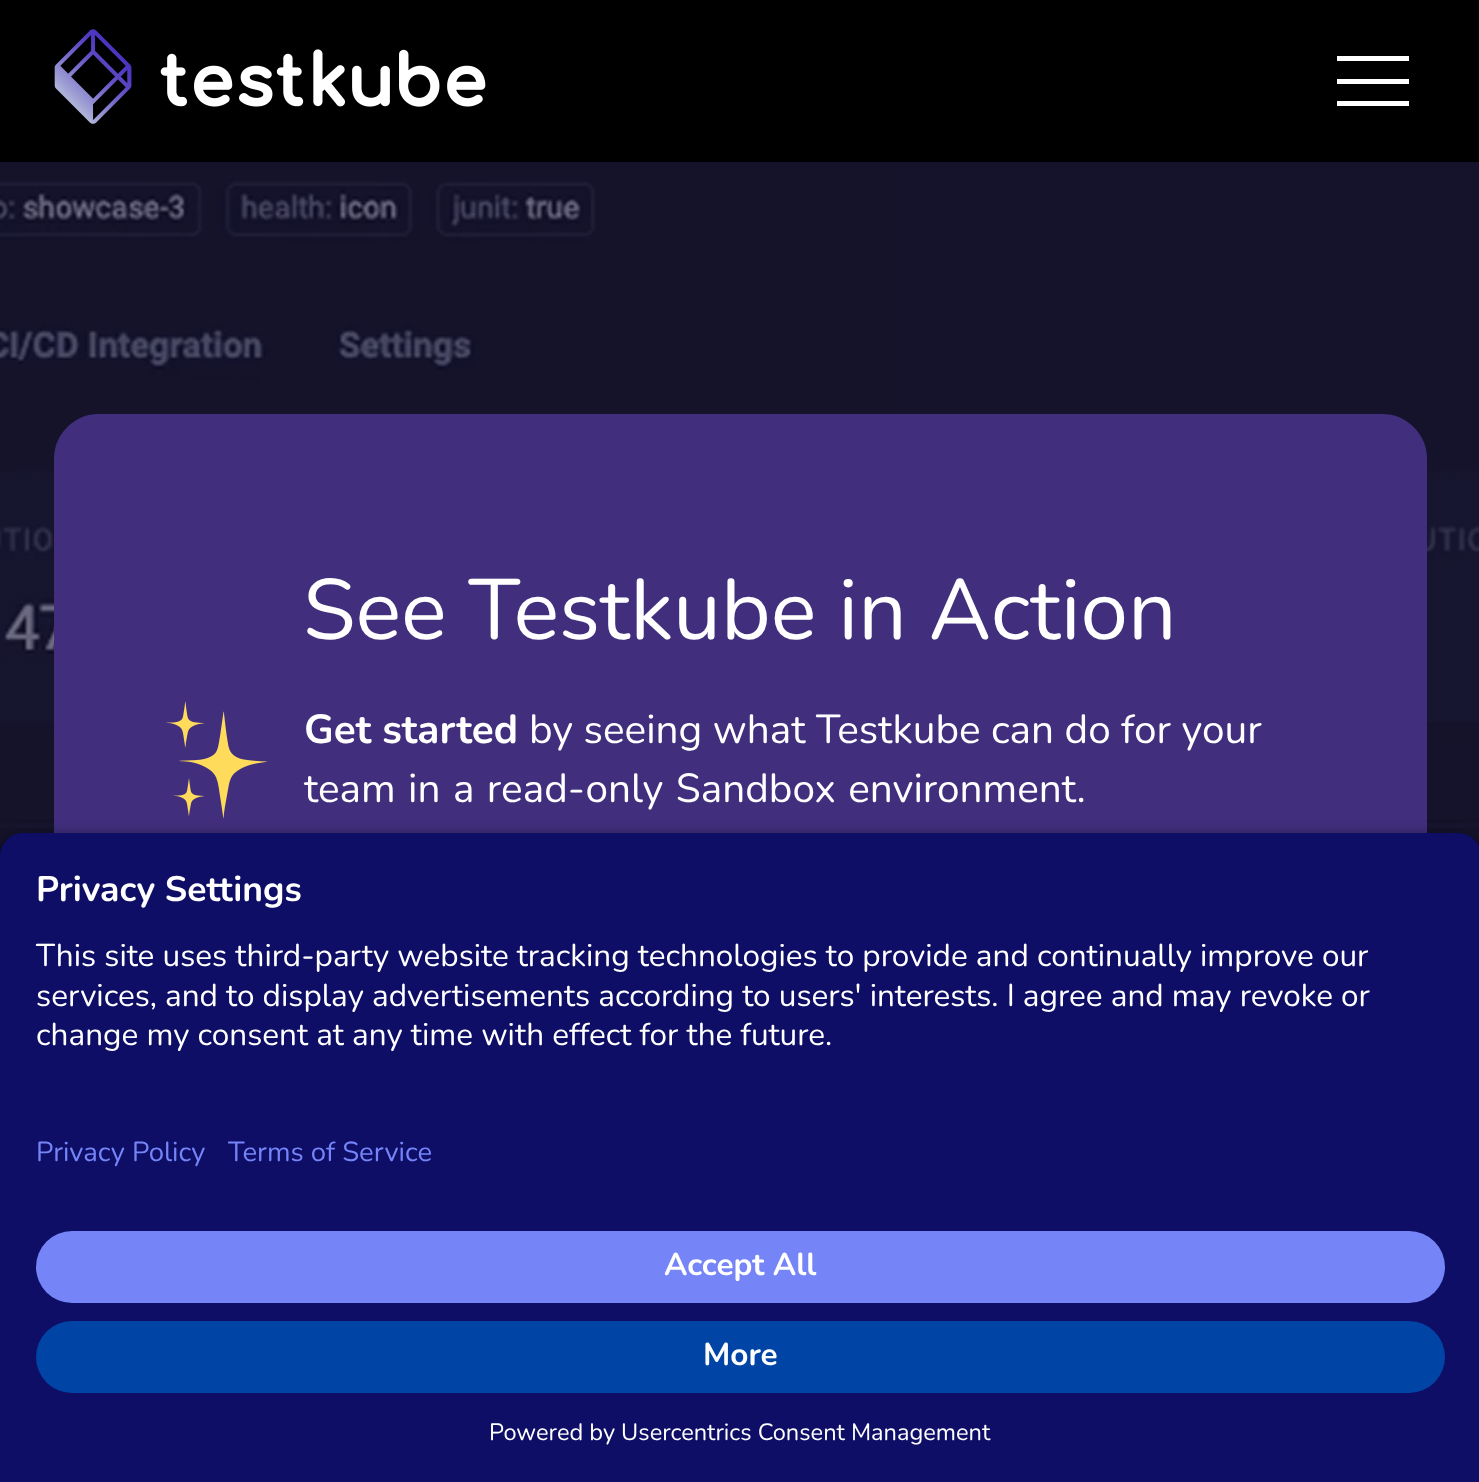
<?xml version="1.0" encoding="UTF-8"?>
<svg xmlns="http://www.w3.org/2000/svg" xmlns:xlink="http://www.w3.org/1999/xlink" width="1479" height="1482">
  <rect width="100%" height="100%" fill="#ffffff" />
  <rect width="1479" height="162" fill="#000000" />
  <image x="54" y="29" width="432" height="95" xlink:href="image1.png" />
  <rect x="1337" y="56" width="72" height="5" fill="#ffffff" />
  <rect x="1337" y="79" width="72" height="5" fill="#ffffff" />
  <rect x="1337" y="101" width="72" height="5" fill="#ffffff" />
  <image x="0" y="162" width="1479" height="694" xlink:href="image2.png" />
  <rect x="55" y="415" width="1371" height="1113" rx="44" fill="#412f7e" stroke="#412f7e" stroke-width="2" />
  <image x="166" y="701" width="101" height="118" xlink:href="image3.png" />
  <rect y="839" width="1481" height="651" rx="23" fill="#000000" fill-opacity="0.8" filter="blur(8px)" />
  <path d="M 23 833 h 1435 c 12.5 0 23 10.5 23 23 v 244 h -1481 v -244 c 0 -12.5 10.5 -23 23 -23 z" fill="#0e0e66" />
  <rect y="1100" width="1479" height="382" fill="#0e0e66" />
  <rect x="36" y="1231" width="1409" height="72" rx="36" fill="#7584f7" />
  <rect x="36" y="1321" width="1409" height="72" rx="36" fill="#0045a5" />
  <text x="303" y="639" style="font-family: Nunito; font-size: 85.5px; fill: #ffffff">See Testkube in Action</text>
  <text x="304" y="743" style="font-family: Nunito; font-size: 40.5px; font-weight: bold; fill: #ffffff">Get started</text>
  <text x="529" y="743" style="font-family: Nunito; font-size: 40.5px; fill: #ffffff">by seeing what Testkube can do for your</text>
  <text x="304" y="802" word-spacing="2" style="font-family: Nunito; font-size: 40.5px; fill: #ffffff">team in a read-only Sandbox environment.</text>
  <text x="36" y="901" style="font-family: Nunito; font-size: 35.5px; font-weight: bold; fill: #ffffff">Privacy Settings</text>
  <text x="36" y="966" style="font-family: Nunito; font-size: 31.5px; fill: #ffffff">This site uses third-party website tracking technologies to provide and continually improve our</text>
  <text x="36" y="1006" style="font-family: Nunito; font-size: 31.5px; fill: #ffffff">services, and to display advertisements according to users' interests. I agree and may revoke or</text>
  <text x="36" y="1045" style="font-family: Nunito; font-size: 31.5px; fill: #ffffff">change my consent at any time with effect for the future.</text>
  <text x="36" y="1161" style="font-family: Nunito; font-size: 27.5px; fill: #7584f7">Privacy Policy</text>
  <text x="228" y="1161" style="font-family: Nunito; font-size: 27.5px; fill: #7584f7">Terms of Service</text>
  <text x="664" y="1275" style="font-family: Nunito; font-size: 31.5px; font-weight: bold; fill: #ffffff">Accept All</text>
  <text x="703" y="1365" style="font-family: Nunito; font-size: 31.5px; font-weight: bold; fill: #ffffff">More</text>
  <text x="489" y="1440" style="font-family: Nunito; font-size: 23.6px; fill: #ffffff">Powered by Usercentrics Consent Management</text>
</svg>
